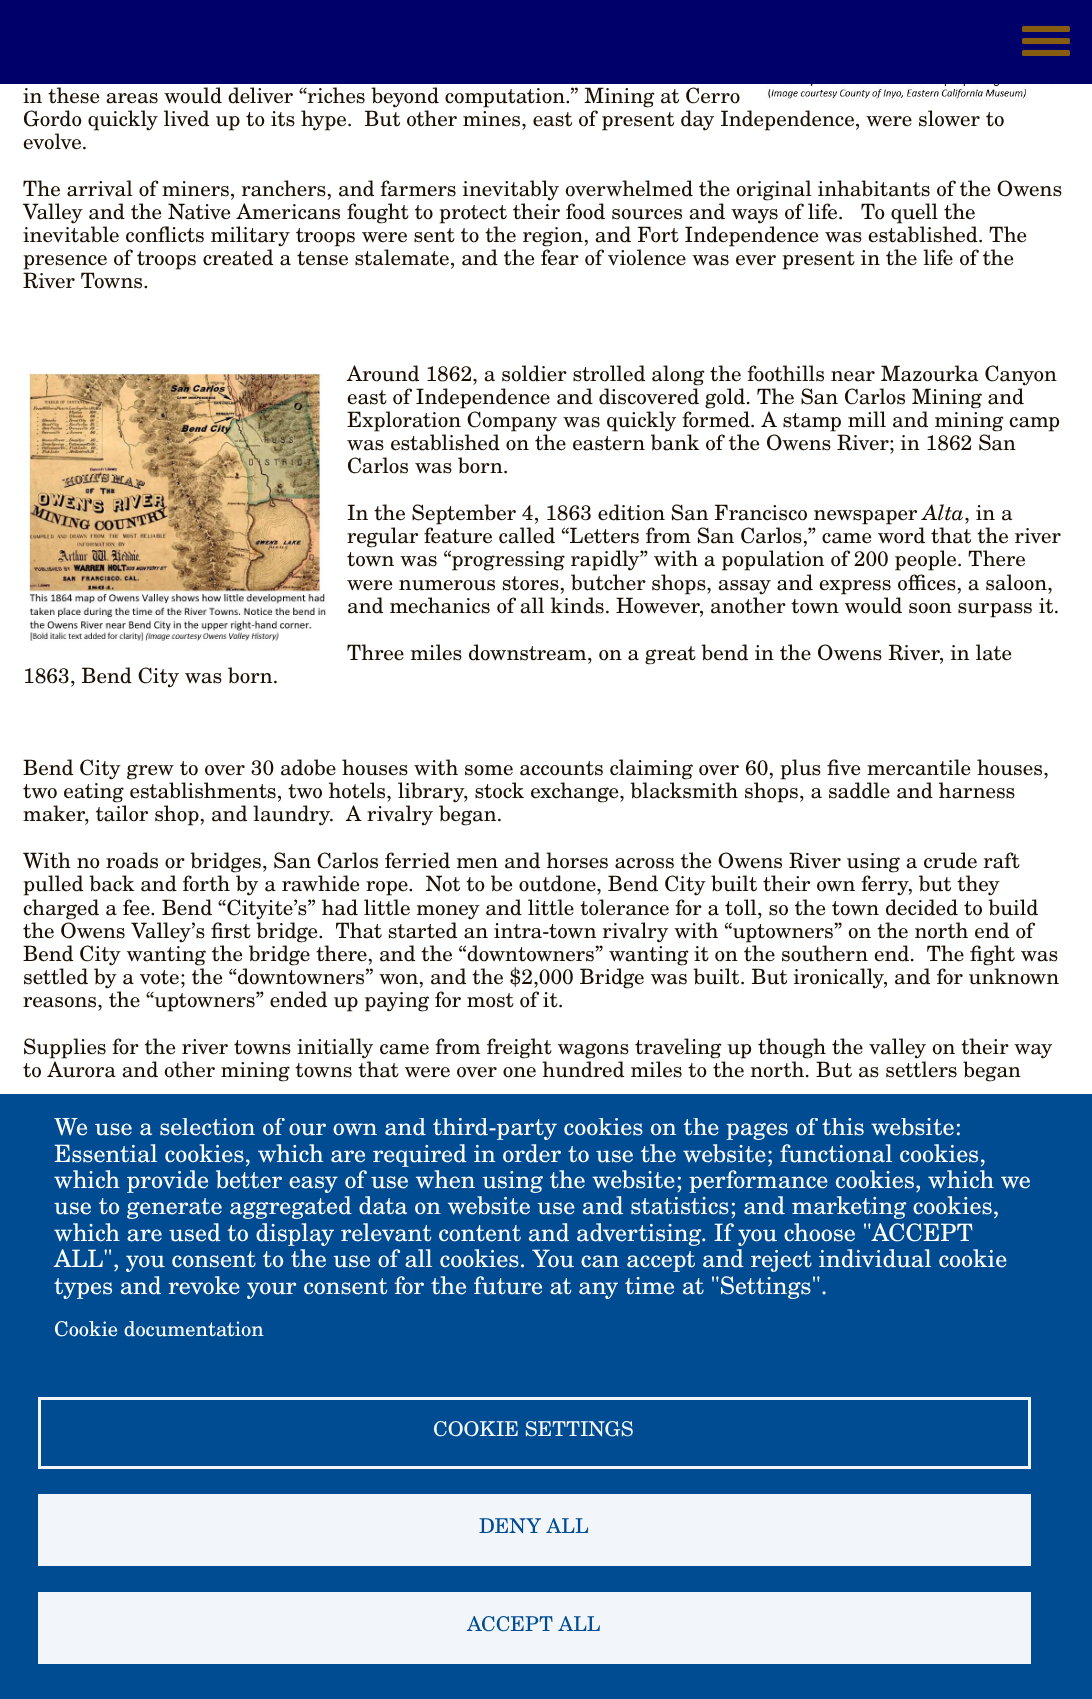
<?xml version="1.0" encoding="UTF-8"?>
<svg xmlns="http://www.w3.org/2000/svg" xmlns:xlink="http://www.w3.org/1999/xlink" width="1092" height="1699">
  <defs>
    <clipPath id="clip1"><rect x="24" y="1118" width="1044" height="235" /></clipPath>
  </defs>
  <rect width="100%" height="100%" fill="#ffffff" />
  <rect width="1092" height="84" fill="#00006a" />
  <rect x="1022" y="38" width="48" height="6" rx="1.5" fill="#845d13" />
  <rect x="1022" y="26" width="48" height="6" rx="1.5" fill="#845d13" />
  <rect x="1022" y="50" width="48" height="6" rx="1.5" fill="#845d13" />
  <image x="766" y="84" width="297" height="17" xlink:href="image1.png" />
  <image x="29" y="373" width="297" height="268" xlink:href="image2.png" />
  <rect y="1094" width="1092" height="605" fill="#004c93" />
  <rect x="39.5" y="1398.5" width="990" height="69" fill="none" stroke="#f2f6fa" stroke-width="3" />
  <rect x="38" y="1494" width="993" height="72" fill="#f2f6fa" />
  <rect x="38" y="1592" width="993" height="72" fill="#f2f6fa" />
  <text x="23" y="103" style="font-family: 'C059'; font-size: 21px; fill: #1b1003">in these areas would deliver “riches beyond computation.” Mining at Cerro</text>
  <text x="23" y="126" style="font-family: 'C059'; font-size: 21px; fill: #1b1003" xml:space="preserve">Gordo quickly lived up to its hype.  But other mines, east of present day Independence, were slower to</text>
  <text x="23" y="149" style="font-family: 'C059'; font-size: 21px; fill: #1b1003">evolve.</text>
  <text x="23" y="196" style="font-family: 'C059'; font-size: 21px; fill: #1b1003">The arrival of miners, ranchers, and farmers inevitably overwhelmed the original inhabitants of the Owens</text>
  <text x="23" y="219" style="font-family: 'C059'; font-size: 21px; fill: #1b1003" xml:space="preserve">Valley and the Native Americans fought to protect their food sources and ways of life.   To quell the</text>
  <text x="23" y="242" style="font-family: 'C059'; font-size: 21px; fill: #1b1003">inevitable conflicts military troops were sent to the region, and Fort Independence was established. The</text>
  <text x="23" y="265" style="font-family: 'C059'; font-size: 21px; fill: #1b1003">presence of troops created a tense stalemate, and the fear of violence was ever present in the life of the</text>
  <text x="23" y="288" style="font-family: 'C059'; font-size: 21px; fill: #1b1003">River Towns.</text>
  <text x="347" y="381" style="font-family: 'C059'; font-size: 21px; fill: #1b1003">Around 1862, a soldier strolled along the foothills near Mazourka Canyon</text>
  <text x="347" y="404" style="font-family: 'C059'; font-size: 21px; fill: #1b1003">east of Independence and discovered gold. The San Carlos Mining and</text>
  <text x="347" y="427" style="font-family: 'C059'; font-size: 21px; fill: #1b1003">Exploration Company was quickly formed. A stamp mill and mining camp</text>
  <text x="347" y="450" style="font-family: 'C059'; font-size: 21px; fill: #1b1003">was established on the eastern bank of the Owens River; in 1862 San</text>
  <text x="347" y="473" style="font-family: 'C059'; font-size: 21px; fill: #1b1003">Carlos was born.</text>
  <text x="347" y="520" style="font-family: 'C059'; font-size: 21px; fill: #1b1003">In the September 4, 1863 edition San Francisco newspaper</text>
  <text x="923" y="520" style="font-family: 'C059'; font-size: 21px; font-style: italic; fill: #1b1003">Alta</text>
  <text x="964" y="520" style="font-family: 'C059'; font-size: 21px; fill: #1b1003">, in a</text>
  <text x="347" y="543" style="font-family: 'C059'; font-size: 21px; fill: #1b1003">regular feature called “Letters from San Carlos,” came word that the river</text>
  <text x="347" y="566" style="font-family: 'C059'; font-size: 21px; fill: #1b1003">town was “progressing rapidly” with a population of 200 people. There</text>
  <text x="347" y="590" style="font-family: 'C059'; font-size: 21px; fill: #1b1003">were numerous stores, butcher shops, assay and express offices, a saloon,</text>
  <text x="347" y="613" style="font-family: 'C059'; font-size: 21px; fill: #1b1003">and mechanics of all kinds. However, another town would soon surpass it.</text>
  <text x="347" y="660" style="font-family: 'C059'; font-size: 21px; fill: #1b1003">Three miles downstream, on a great bend in the Owens River, in late</text>
  <text x="23" y="683" style="font-family: 'C059'; font-size: 21px; fill: #1b1003">1863, Bend City was born.</text>
  <text x="23" y="775" style="font-family: 'C059'; font-size: 21px; fill: #1b1003">Bend City grew to over 30 adobe houses with some accounts claiming over 60, plus five mercantile houses,</text>
  <text x="23" y="798" style="font-family: 'C059'; font-size: 21px; fill: #1b1003">two eating establishments, two hotels, library, stock exchange, blacksmith shops, a saddle and harness</text>
  <text x="23" y="821" style="font-family: 'C059'; font-size: 21px; fill: #1b1003" xml:space="preserve">maker, tailor shop, and laundry.  A rivalry began.</text>
  <text x="23" y="868" style="font-family: 'C059'; font-size: 21px; fill: #1b1003">With no roads or bridges, San Carlos ferried men and horses across the Owens River using a crude raft</text>
  <text x="23" y="891" style="font-family: 'C059'; font-size: 21px; fill: #1b1003" xml:space="preserve">pulled back and forth by a rawhide rope.  Not to be outdone, Bend City built their own ferry, but they</text>
  <text x="23" y="915" style="font-family: 'C059'; font-size: 21px; fill: #1b1003">charged a fee. Bend “Cityite’s” had little money and little tolerance for a toll, so the town decided to build</text>
  <text x="23" y="938" style="font-family: 'C059'; font-size: 21px; fill: #1b1003" xml:space="preserve">the Owens Valley’s first bridge.  That started an intra-town rivalry with “uptowners” on the north end of</text>
  <text x="23" y="961" style="font-family: 'C059'; font-size: 21px; fill: #1b1003" xml:space="preserve">Bend City wanting the bridge there, and the “downtowners” wanting it on the southern end.  The fight was</text>
  <text x="23" y="984" style="font-family: 'C059'; font-size: 21px; fill: #1b1003">settled by a vote; the “downtowners” won, and the $2,000 Bridge was built. But ironically, and for unknown</text>
  <text x="23" y="1007" style="font-family: 'C059'; font-size: 21px; fill: #1b1003">reasons, the “uptowners” ended up paying for most of it.</text>
  <text x="23" y="1054" style="font-family: 'C059'; font-size: 21px; fill: #1b1003">Supplies for the river towns initially came from freight wagons traveling up though the valley on their way</text>
  <text x="23" y="1077" style="font-family: 'C059'; font-size: 21px; fill: #1b1003">to Aurora and other mining towns that were over one hundred miles to the north. But as settlers began</text>
  <g clip-path="url(#clip1)">
    <text x="54" y="1135" style="font-family: 'C059'; font-size: 24px; fill: #ffffff">We use a selection of our own and third-party cookies on the pages of this website:</text>
  </g>
  <text x="54" y="1162" style="font-family: 'C059'; font-size: 24px; fill: #ffffff">Essential cookies, which are required in order to use the website; functional cookies,</text>
  <text x="54" y="1188" style="font-family: 'C059'; font-size: 24px; fill: #ffffff">which provide better easy of use when using the website; performance cookies, which we</text>
  <text x="54" y="1214" style="font-family: 'C059'; font-size: 24px; fill: #ffffff">use to generate aggregated data on website use and statistics; and marketing cookies,</text>
  <text x="54" y="1241" style="font-family: 'C059'; font-size: 24px; fill: #ffffff">which are used to display relevant content and advertising. If you choose "ACCEPT</text>
  <text x="54" y="1267" style="font-family: 'C059'; font-size: 24px; fill: #ffffff">ALL", you consent to the use of all cookies. You can accept and reject individual cookie</text>
  <text x="54" y="1294" style="font-family: 'C059'; font-size: 24px; fill: #ffffff">types and revoke your consent for the future at any time at "Settings".</text>
  <text x="54" y="1336" style="font-family: 'C059'; font-size: 20.4px; fill: #ffffff">Cookie documentation</text>
  <text x="433" y="1436" style="font-family: 'C059'; font-size: 20.4px; fill: #f2f6fa">COOKIE SETTINGS</text>
  <text x="479" y="1533" style="font-family: 'C059'; font-size: 20.4px; fill: #004c93">DENY ALL</text>
  <text x="467" y="1631" style="font-family: 'C059'; font-size: 20.4px; fill: #004c93">ACCEPT ALL</text>
</svg>
